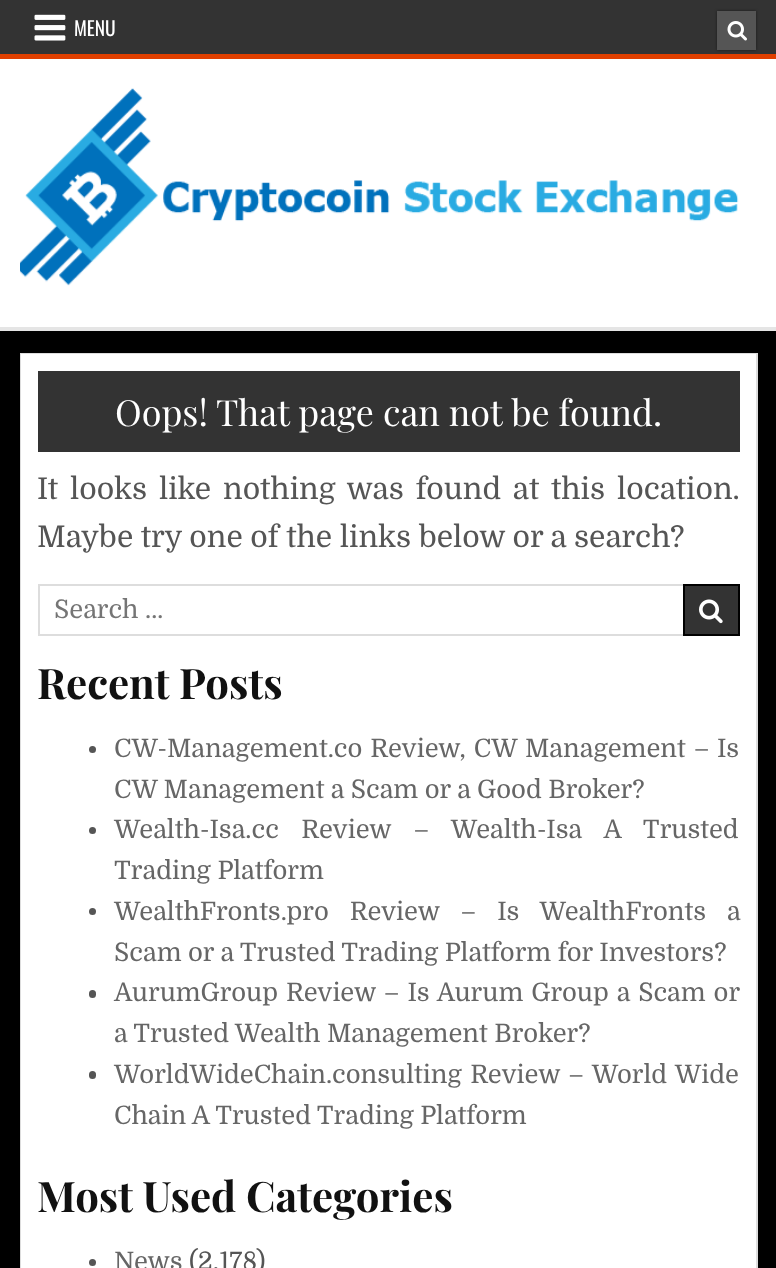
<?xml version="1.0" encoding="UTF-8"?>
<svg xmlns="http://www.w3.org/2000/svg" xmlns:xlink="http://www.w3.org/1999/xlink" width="776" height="1268">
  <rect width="100%" height="100%" fill="#000000" />
  <rect width="776" height="54" fill="#333333" />
  <rect y="54" width="776" height="5" fill="#e03f00" />
  <image x="34" y="14" width="32" height="27" xlink:href="image1.png" />
  <rect x="717" y="11" width="39" height="39" fill="#000000" fill-opacity="0.5" filter="blur(1.5px)" />
  <rect x="717" y="11" width="39" height="39" fill="#555555" />
  <image x="727" y="21" width="20" height="20" xlink:href="image2.png" />
  <rect y="59" width="776" height="268" fill="#ffffff" />
  <image x="20" y="88" width="719" height="198" xlink:href="image3.png" />
  <rect y="327" width="776" height="4" fill="#e5e5e5" />
  <rect x="23" y="356" width="731" height="912" fill="#ffffff" />
  <rect x="21" y="354" width="736" height="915" fill="none" stroke="#dddddd" stroke-width="2" />
  <rect x="22" y="355" width="733" height="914" fill="none" stroke="#ffffff" stroke-width="2" />
  <rect x="38" y="371" width="702" height="81" fill="#333333" />
  <rect x="39" y="585" width="700" height="50" fill="none" stroke="#dddddd" stroke-width="2" />
  <rect x="684" y="585" width="55" height="50" fill="#333333" stroke="#000000" stroke-width="2" />
  <image x="699" y="599" width="24" height="25" xlink:href="image4.png" />
  <circle cx="92.5" cy="749.5" r="3.5" fill="#555555" />
  <circle cx="92.5" cy="830.5" r="3.5" fill="#555555" />
  <circle cx="92.5" cy="911.5" r="3.5" fill="#555555" />
  <rect x="89" y="990" width="7" height="8" rx="3.5" fill="#555555" />
  <rect x="89" y="1071" width="7" height="8" rx="3.5" fill="#555555" />
  <circle cx="92.5" cy="1262.5" r="3.5" fill="#555555" />
  <text x="74" y="36" style="font-family: Oswald; font-size: 19.5px; fill: #ffffff">MENU</text>
  <text x="115" y="426" style="font-family: Playfair Display; font-size: 36px; fill: #ffffff">Oops! That page can not be found.</text>
  <text x="37" y="499" word-spacing="4.25" style="font-family: Domine; font-size: 30px; fill: #555555">It looks like nothing was found at this location.</text>
  <text x="37" y="547" style="font-family: Domine; font-size: 30px; fill: #555555">Maybe try one of the links below or a search?</text>
  <text x="54" y="618" style="font-family: Domine; font-size: 25.5px; fill: #757575">Search …</text>
  <text x="37" y="699" style="font-family: Playfair Display; font-size: 42px; font-weight: bold; fill: #111111">Recent Posts</text>
  <text x="114" y="757" word-spacing="1.5" style="font-family: Domine; font-size: 25.5px; fill: #666666">CW-Management.co Review, CW Management –</text>
  <text x="717" y="757" style="font-family: Domine; font-size: 25.5px; fill: #666666">Is</text>
  <text x="114" y="798" style="font-family: Domine; font-size: 25.5px; fill: #666666">CW Management a Scam or a Good Broker?</text>
  <text x="114" y="838" word-spacing="16" style="font-family: Domine; font-size: 25.5px; fill: #666666">Wealth-Isa.cc Review – Wealth-Isa A Trusted</text>
  <text x="114" y="879" style="font-family: Domine; font-size: 25.5px; fill: #666666">Trading Platform</text>
  <text x="114" y="920" word-spacing="14.5" style="font-family: Domine; font-size: 25.5px; fill: #666666">WealthFronts.pro Review – Is WealthFronts a</text>
  <text x="114" y="961" style="font-family: Domine; font-size: 25.5px; fill: #666666">Scam or a Trusted Trading Platform for Investors?</text>
  <text x="114" y="1001" word-spacing="1.5" style="font-family: Domine; font-size: 25.5px; fill: #666666">AurumGroup Review – Is Aurum Group a Scam or</text>
  <text x="114" y="1042" style="font-family: Domine; font-size: 25.5px; fill: #666666">a Trusted Wealth Management Broker?</text>
  <text x="114" y="1083" word-spacing="2" style="font-family: Domine; font-size: 25.5px; fill: #666666">WorldWideChain.consulting Review – World Wide</text>
  <text x="114" y="1124" style="font-family: Domine; font-size: 25.5px; fill: #666666">Chain A Trusted Trading Platform</text>
  <text x="37" y="1212" style="font-family: Playfair Display; font-size: 42px; font-weight: bold; fill: #111111">Most Used Categories</text>
  <text x="114" y="1270" style="font-family: Domine; font-size: 25.5px; fill: #666666">News</text>
  <text x="189" y="1270" style="font-family: Domine; font-size: 25.5px; fill: #555555">(2,178)</text>
</svg>
